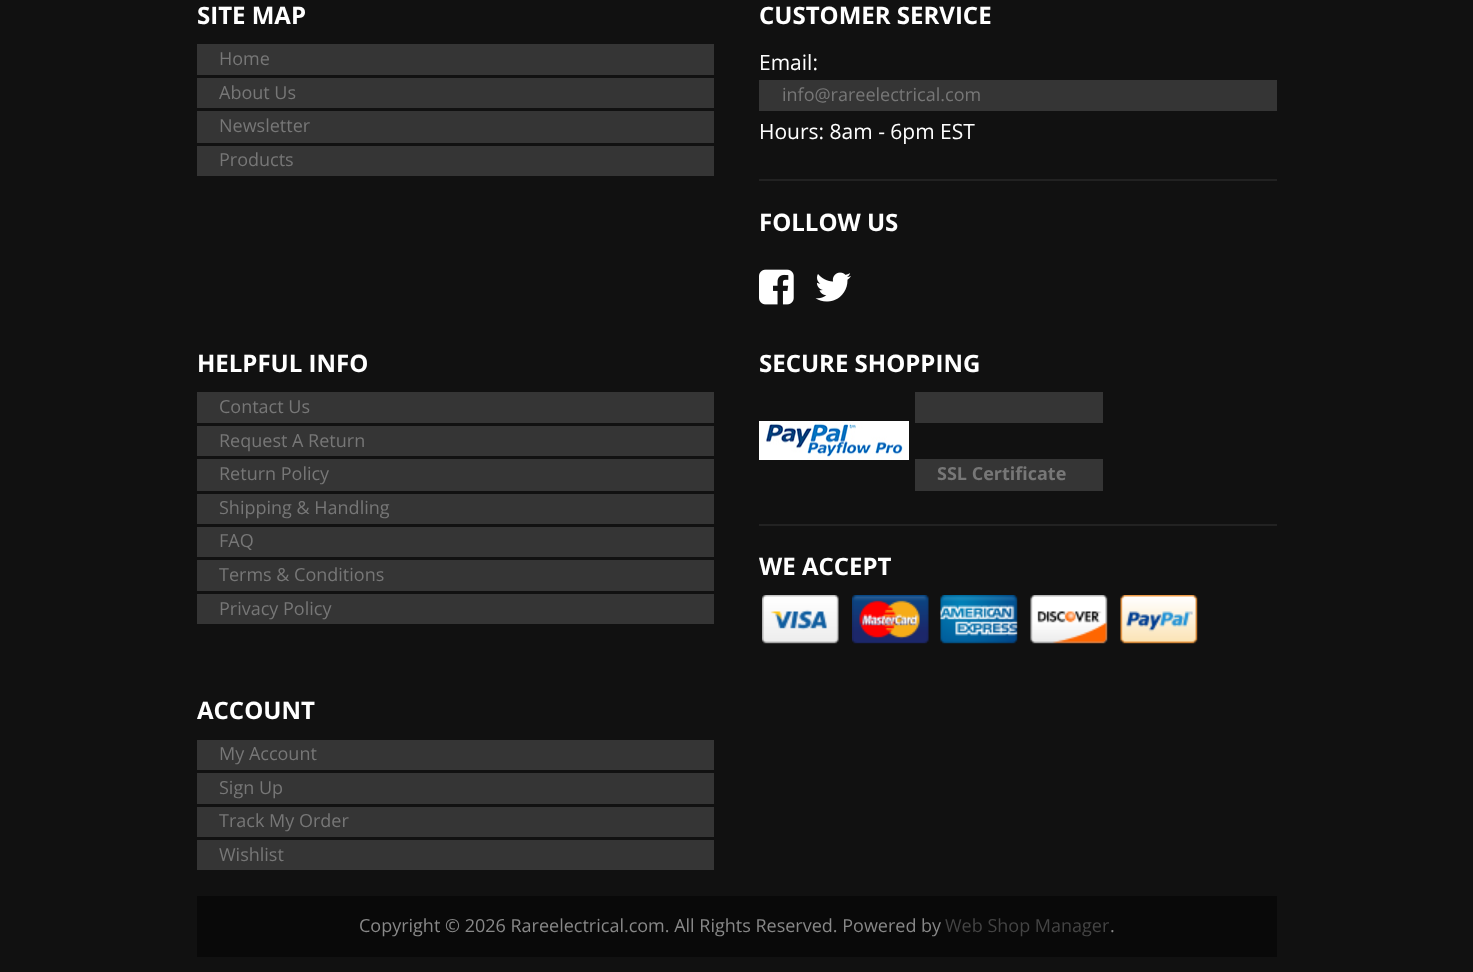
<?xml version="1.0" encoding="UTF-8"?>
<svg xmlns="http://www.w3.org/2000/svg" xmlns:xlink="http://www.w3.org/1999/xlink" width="1473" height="972">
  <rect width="100%" height="100%" fill="#111111" />
  <rect x="197" y="44" width="517" height="31" fill="#353535" />
  <rect x="197" y="78" width="517" height="30" fill="#353535" />
  <rect x="197" y="111" width="517" height="32" fill="#353535" />
  <rect x="197" y="146" width="517" height="30" fill="#353535" />
  <rect x="759" y="80" width="518" height="31" fill="#353535" />
  <rect x="759" y="179" width="518" height="2" fill="#222222" />
  <image x="759" y="269" width="35" height="36" xlink:href="image1.png" />
  <image x="815" y="272" width="36" height="30" xlink:href="image2.png" />
  <rect x="197" y="392" width="517" height="31" fill="#353535" />
  <rect x="197" y="426" width="517" height="30" fill="#353535" />
  <rect x="197" y="459" width="517" height="32" fill="#353535" />
  <rect x="197" y="494" width="517" height="30" fill="#353535" />
  <rect x="197" y="527" width="517" height="30" fill="#353535" />
  <rect x="197" y="560" width="517" height="31" fill="#353535" />
  <rect x="197" y="594" width="517" height="30" fill="#353535" />
  <image x="759" y="421" width="150" height="39" xlink:href="image3.png" />
  <rect x="915" y="392" width="188" height="31" fill="#353535" />
  <rect x="915" y="459" width="188" height="32" fill="#353535" />
  <rect x="759" y="524" width="518" height="2" fill="#222222" />
  <image x="762" y="595" width="77" height="49" xlink:href="image4.png" />
  <image x="852" y="595" width="77" height="49" xlink:href="image5.png" />
  <image x="940" y="595" width="78" height="49" xlink:href="image6.png" />
  <image x="1030" y="595" width="78" height="49" xlink:href="image7.png" />
  <image x="1120" y="595" width="78" height="49" xlink:href="image8.png" />
  <rect x="197" y="740" width="517" height="30" fill="#353535" />
  <rect x="197" y="773" width="517" height="31" fill="#353535" />
  <rect x="197" y="807" width="517" height="30" fill="#353535" />
  <rect x="197" y="840" width="517" height="30" fill="#353535" />
  <rect x="197" y="896" width="1080" height="61" fill="#090909" />
  <text x="197" y="24" style="font-family: Open Sans; font-size: 24px; font-weight: bold; fill: #ffffff">SITE MAP</text>
  <text x="219" y="65" style="font-family: Open Sans; font-size: 18px; fill: #777777">Home</text>
  <text x="219" y="99" style="font-family: Open Sans; font-size: 18px; fill: #777777">About Us</text>
  <text x="219" y="132" style="font-family: Open Sans; font-size: 18px; fill: #777777">Newsletter</text>
  <text x="219" y="166" style="font-family: Open Sans; font-size: 18px; fill: #777777">Products</text>
  <text x="759" y="24" style="font-family: Open Sans; font-size: 24px; font-weight: bold; fill: #ffffff">CUSTOMER SERVICE</text>
  <text x="759" y="70" style="font-family: Open Sans; font-size: 21px; fill: #ffffff">Email:</text>
  <text x="782" y="101" style="font-family: Open Sans; font-size: 18px; fill: #777777">info@rareelectrical.com</text>
  <text x="759" y="139" style="font-family: Open Sans; font-size: 21px; fill: #ffffff">Hours: 8am - 6pm EST</text>
  <text x="759" y="231" style="font-family: Open Sans; font-size: 24px; font-weight: bold; fill: #ffffff">FOLLOW US</text>
  <text x="197" y="372" style="font-family: Open Sans; font-size: 24px; font-weight: bold; fill: #ffffff">HELPFUL INFO</text>
  <text x="219" y="413" style="font-family: Open Sans; font-size: 18px; fill: #777777">Contact Us</text>
  <text x="219" y="447" style="font-family: Open Sans; font-size: 18px; fill: #777777">Request A Return</text>
  <text x="219" y="480" style="font-family: Open Sans; font-size: 18px; fill: #777777">Return Policy</text>
  <text x="219" y="514" style="font-family: Open Sans; font-size: 18px; fill: #777777">Shipping &amp; Handling</text>
  <text x="219" y="547" style="font-family: Open Sans; font-size: 18px; fill: #777777">FAQ</text>
  <text x="219" y="581" style="font-family: Open Sans; font-size: 18px; fill: #777777">Terms &amp; Conditions</text>
  <text x="219" y="615" style="font-family: Open Sans; font-size: 18px; fill: #777777">Privacy Policy</text>
  <text x="759" y="372" style="font-family: Open Sans; font-size: 24px; font-weight: bold; fill: #ffffff">SECURE SHOPPING</text>
  <text x="937" y="480" style="font-family: Open Sans; font-size: 18px; font-weight: bold; fill: #777777">SSL Certificate</text>
  <text x="759" y="575" style="font-family: Open Sans; font-size: 24px; font-weight: bold; fill: #ffffff">WE ACCEPT</text>
  <text x="197" y="719" style="font-family: Open Sans; font-size: 24px; font-weight: bold; fill: #ffffff">ACCOUNT</text>
  <text x="219" y="760" style="font-family: Open Sans; font-size: 18px; fill: #777777">My Account</text>
  <text x="219" y="794" style="font-family: Open Sans; font-size: 18px; fill: #777777">Sign Up</text>
  <text x="219" y="827" style="font-family: Open Sans; font-size: 18px; fill: #777777">Track My Order</text>
  <text x="219" y="861" style="font-family: Open Sans; font-size: 18px; fill: #777777">Wishlist</text>
  <text x="359" y="932" style="font-family: Open Sans; font-size: 18px; fill: #888888">Copyright © 2026 Rareelectrical.com. All Rights Reserved. Powered by</text>
  <text x="945" y="932" style="font-family: Open Sans; font-size: 18px; fill: #444444">Web Shop Manager</text>
  <text x="1110" y="932" style="font-family: Open Sans; font-size: 18px; fill: #888888">.</text>
</svg>
